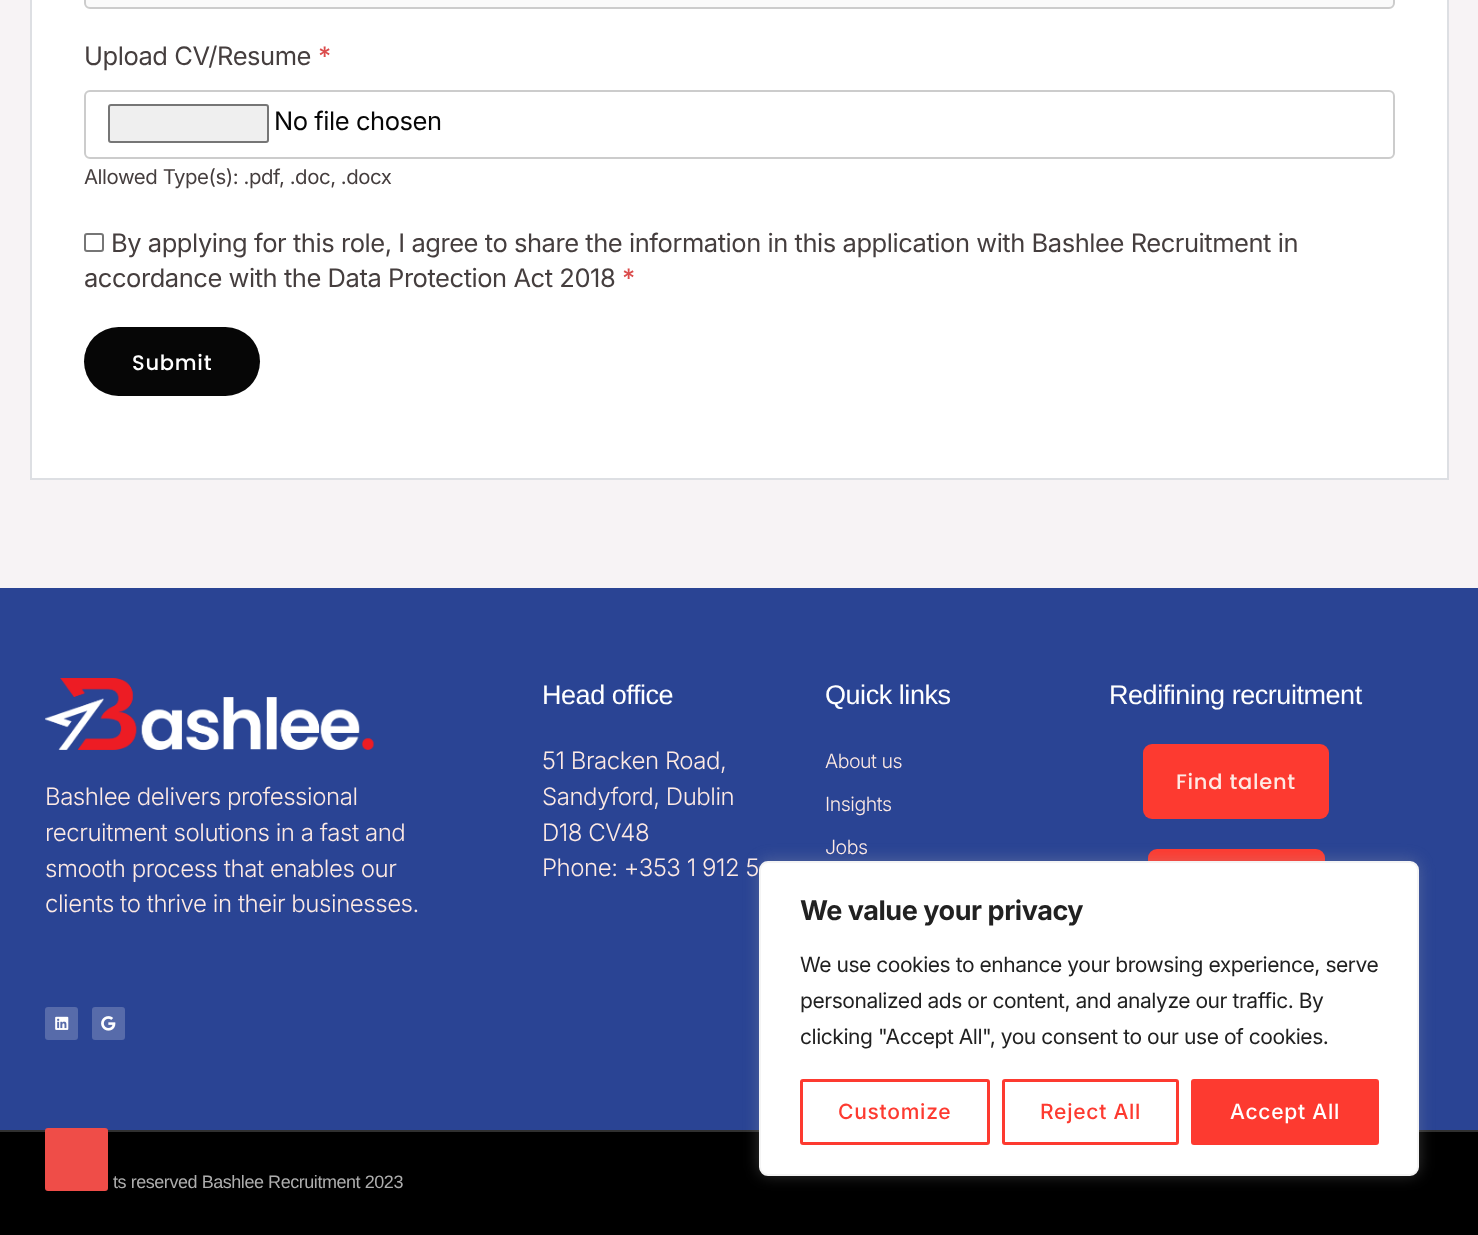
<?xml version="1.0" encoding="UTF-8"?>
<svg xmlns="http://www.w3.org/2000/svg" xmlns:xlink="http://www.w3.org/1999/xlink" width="1478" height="1235">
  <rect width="100%" height="100%" fill="#f7f3f5" />
  <rect x="31" y="-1" width="1417" height="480" fill="#ffffff" stroke="#dddfe3" stroke-width="2" />
  <rect x="85" y="-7" width="1309" height="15" rx="5" fill="#fafafa" stroke="#cccccc" stroke-width="2" />
  <rect x="85" y="91" width="1309" height="67" rx="5" fill="none" stroke="#cccccc" stroke-width="2" />
  <rect x="109" y="105" width="159" height="37" rx="2" fill="#efefef" stroke="#767676" stroke-width="2" />
  <rect x="85" y="234" width="18" height="17" rx="2" fill="none" stroke="#767676" stroke-width="2" />
  <rect x="84" y="327" width="176" height="69" rx="34.5" fill="#060606" />
  <rect y="588" width="1478" height="542" fill="#2a4494" />
  <rect x="1143" y="744" width="186" height="75" rx="9" fill="#fd3a30" />
  <rect x="1148" y="849" width="177" height="75" rx="9" fill="#fd3a30" />
  <image x="45" y="678" width="329" height="72" xlink:href="image1.png" />
  <rect x="45" y="1007" width="33" height="33" rx="3" fill="#576baa" />
  <image x="55" y="1016" width="14" height="14" xlink:href="image2.png" />
  <rect x="92" y="1007" width="33" height="33" rx="3" fill="#576baa" />
  <image x="101" y="1016" width="15" height="15" xlink:href="image3.png" />
  <rect y="1132" width="1478" height="103" fill="#000000" />
  <rect y="1130" width="1478" height="2" fill="#303030" />
  <rect x="759" y="860" width="660" height="315" rx="9" fill="#acabab" fill-opacity="0.3" filter="blur(7.5px)" />
  <rect x="760" y="862" width="658" height="313" rx="8" fill="#ffffff" stroke="#f4f4f4" stroke-width="2" />
  <rect x="801.5" y="1080.5" width="187" height="63" rx="1.5" fill="none" stroke="#fd3a30" stroke-width="3" />
  <rect x="1003.5" y="1080.5" width="174" height="63" rx="1.5" fill="none" stroke="#fd3a30" stroke-width="3" />
  <rect x="1192.5" y="1080.5" width="185" height="63" rx="1.5" fill="#fd3a30" stroke="#fd3a30" stroke-width="3" />
  <path d="M 105 1191 h -57 c -2 0 -3 -1 -3 -3 v -57 c 0 -2 1 -3 3 -3 h 57 c 2 0 3 1 3 3 v 57 c 0 2 -1 3 -3 3 z" fill="#ef4d48" />
  <text x="84" y="65" style="font-family: Inter; font-size: 25.5px; letter-spacing: -0.45px; fill: #453e3e">Upload CV/Resume</text>
  <text x="318" y="65" style="font-family: Inter; font-size: 25.5px; font-weight: 500; letter-spacing: -0.45px; fill: #db4c4c">*</text>
  <text x="274" y="130" style="font-family: Inter; font-size: 25.5px; letter-spacing: -0.45px; fill: #060606">No file chosen</text>
  <text x="84" y="184" style="font-family: Inter; font-size: 20.4px; letter-spacing: -0.45px; fill: #453e3e">Allowed Type(s): .pdf, .doc, .docx</text>
  <text x="111" y="252" style="font-family: Inter; font-size: 25.5px; letter-spacing: -0.45px; fill: #453e3e">By applying for this role, I agree to share the information in this application with Bashlee Recruitment in</text>
  <text x="84" y="287" style="font-family: Inter; font-size: 25.5px; letter-spacing: -0.45px; fill: #453e3e">accordance with the Data Protection Act 2018</text>
  <text x="622" y="287" style="font-family: Inter; font-size: 25.5px; font-weight: 500; letter-spacing: -0.45px; fill: #db4c4c">*</text>
  <text x="132" y="370" style="font-family: Poppins; font-size: 21px; font-weight: 500; letter-spacing: 0.75px; fill: #ffffff">Submit</text>
  <text x="542" y="704" style="font-family: Liberation Sans; font-size: 27px; letter-spacing: -0.45px; fill: #ffffff">Head office</text>
  <text x="542" y="769" style="font-family: Inter; font-size: 24px; font-weight: 300; letter-spacing: -0.45px; fill: #feeae4">51 Bracken Road,</text>
  <text x="542" y="805" style="font-family: Inter; font-size: 24px; font-weight: 300; letter-spacing: -0.45px; fill: #feeae4">Sandyford, Dublin</text>
  <text x="542" y="841" style="font-family: Inter; font-size: 24px; font-weight: 300; letter-spacing: -0.45px; fill: #feeae4">D18 CV48</text>
  <text x="542" y="876" style="font-family: Inter; font-size: 24px; font-weight: 300; letter-spacing: -0.45px; fill: #feeae4">Phone: +353 1 912 5</text>
  <text x="825" y="704" style="font-family: Liberation Sans; font-size: 27px; letter-spacing: -0.45px; fill: #ffffff">Quick links</text>
  <text x="825" y="768" style="font-family: Inter; font-size: 19.5px; font-weight: 300; letter-spacing: -0.45px; fill: #feeae4">About us</text>
  <text x="825" y="811" style="font-family: Inter; font-size: 19.5px; font-weight: 300; letter-spacing: -0.45px; fill: #feeae4">Insights</text>
  <text x="825" y="854" style="font-family: Inter; font-size: 19.5px; font-weight: 300; letter-spacing: -0.45px; fill: #feeae4">Jobs</text>
  <text x="1109" y="704" style="font-family: Liberation Sans; font-size: 27px; letter-spacing: -0.45px; fill: #ffffff">Redifining recruitment</text>
  <text x="1176" y="789" style="font-family: Poppins; font-size: 21px; font-weight: 500; letter-spacing: 0.75px; fill: #feeae4">Find talent</text>
  <text x="45" y="805" style="font-family: Inter; font-size: 24px; font-weight: 300; letter-spacing: -0.45px; fill: #feeae4">Bashlee delivers professional</text>
  <text x="45" y="841" style="font-family: Inter; font-size: 24px; font-weight: 300; letter-spacing: -0.45px; fill: #feeae4">recruitment solutions in a fast and</text>
  <text x="45" y="877" style="font-family: Inter; font-size: 24px; font-weight: 300; letter-spacing: -0.45px; fill: #feeae4">smooth process that enables our</text>
  <text x="45" y="912" style="font-family: Inter; font-size: 24px; font-weight: 300; letter-spacing: -0.45px; fill: #feeae4">clients to thrive in their businesses.</text>
  <text x="113" y="1188" style="font-family: Liberation Sans; font-size: 18px; letter-spacing: -0.45px; fill: #adadad">ts reserved Bashlee Recruitment 2023</text>
  <text x="800" y="920" style="font-family: Inter; font-size: 27px; font-weight: bold; letter-spacing: -0.45px; fill: #212121">We value your privacy</text>
  <text x="800" y="972" style="font-family: Inter; font-size: 21px; letter-spacing: -0.45px; fill: #212121">We use cookies to enhance your browsing experience, serve</text>
  <text x="800" y="1008" style="font-family: Inter; font-size: 21px; letter-spacing: -0.45px; fill: #212121">personalized ads or content, and analyze our traffic. By</text>
  <text x="800" y="1044" style="font-family: Inter; font-size: 21px; letter-spacing: -0.45px; fill: #212121">clicking "Accept All", you consent to our use of cookies.</text>
  <text x="838" y="1119" style="font-family: Inter; font-size: 21px; font-weight: 500; letter-spacing: 0.75px; fill: #fd3a30">Customize</text>
  <text x="1040" y="1119" style="font-family: Inter; font-size: 21px; font-weight: 500; letter-spacing: 0.75px; fill: #fd3a30">Reject All</text>
  <text x="1230" y="1119" style="font-family: Inter; font-size: 21px; font-weight: 500; letter-spacing: 0.75px; fill: #ffffff">Accept All</text>
</svg>
